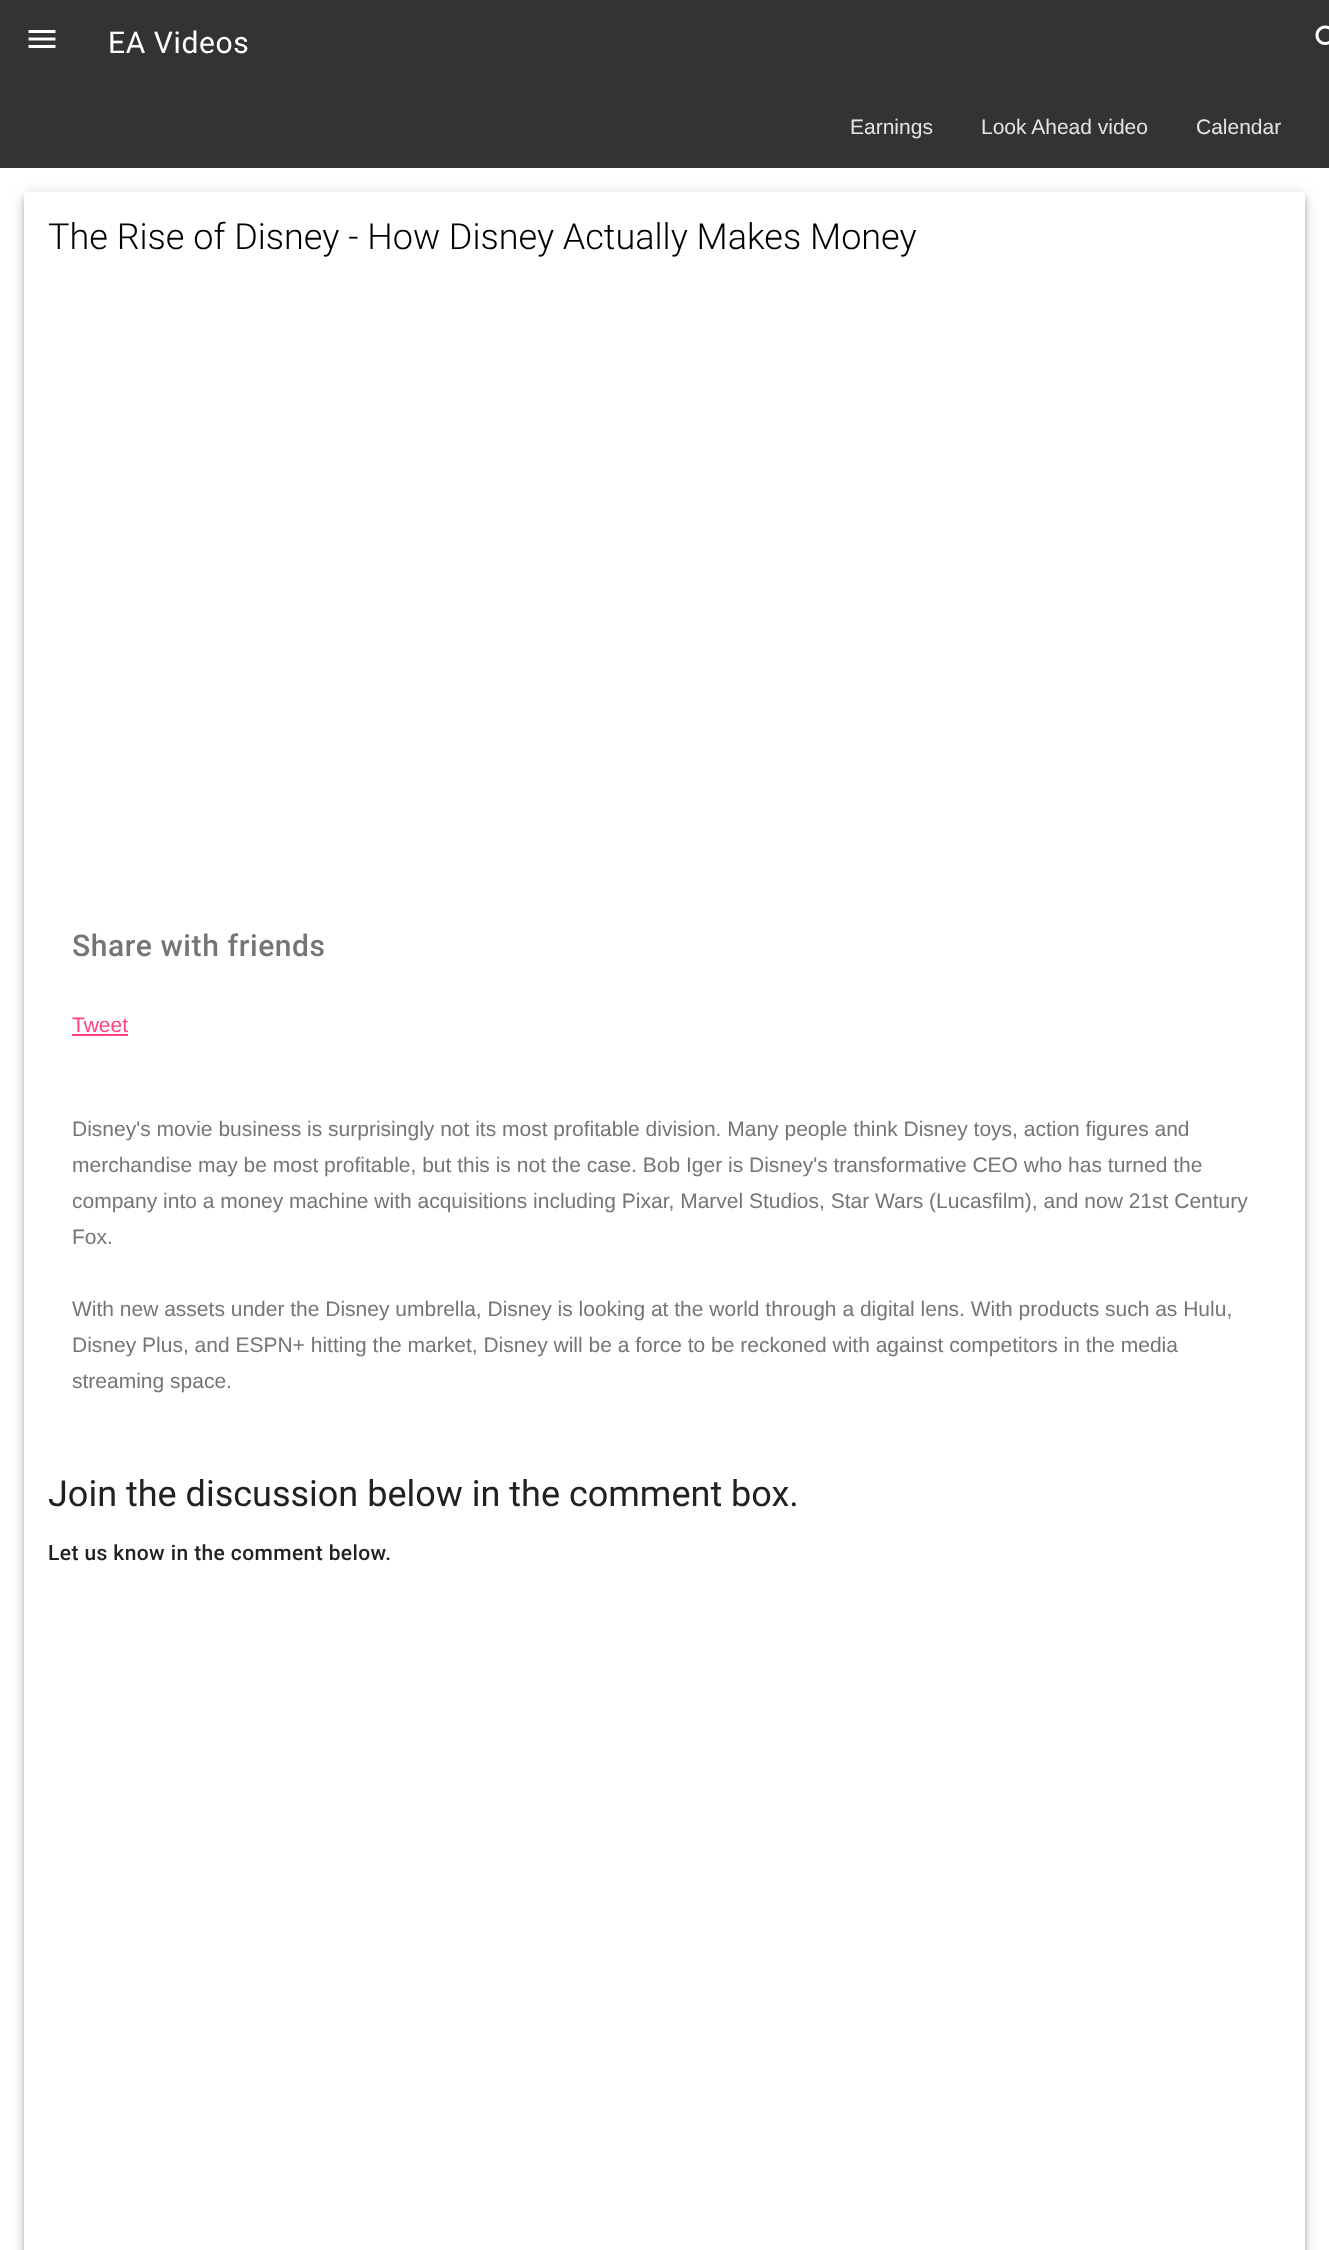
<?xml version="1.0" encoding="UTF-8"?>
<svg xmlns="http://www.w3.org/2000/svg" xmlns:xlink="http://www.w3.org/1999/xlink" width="1329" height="2250">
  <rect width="100%" height="100%" fill="#ffffff" />
  <rect width="1329" height="168" fill="#333333" />
  <image x="28" y="30" width="28" height="18" xlink:href="image1.png" />
  <image x="1315" y="25" width="14" height="20" xlink:href="image2.png" />
  <rect x="26" y="197" width="1278" height="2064" rx="1.5" fill="#000000" fill-opacity="0.2" filter="blur(3px)" />
  <rect x="24" y="194" width="1281" height="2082" rx="3" fill="#000000" fill-opacity="0.12" filter="blur(7.5px)" />
  <rect x="24" y="198" width="1281" height="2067" rx="3" fill="#000000" fill-opacity="0.14" filter="blur(4px)" />
  <path d="M 27 192 h 1275 c 1.5 0 3 1.5 3 3 v 2055 h -1281 v -2055 c 0 -1.5 1.5 -3 3 -3 z" fill="#ffffff" />
  <rect x="72" y="1034" width="56" height="2" fill="#ff4081" />
  <text x="108" y="53" style="font-family: Roboto; font-size: 30px; letter-spacing: 0.6px; fill: #ffffff">EA Videos</text>
  <text x="850" y="134" style="font-family: Liberation Sans; font-size: 21px; fill: #e4e4e4">Earnings</text>
  <text x="981" y="134" style="font-family: Liberation Sans; font-size: 21px; fill: #e4e4e4">Look Ahead video</text>
  <text x="1196" y="134" style="font-family: Liberation Sans; font-size: 21px; fill: #e4e4e4">Calendar</text>
  <text x="48" y="249" style="font-family: Roboto; font-size: 36px; font-weight: 300; fill: #000000">The Rise of Disney - How Disney Actually Makes Money</text>
  <text x="72" y="956" style="font-family: Roboto; font-size: 30px; font-weight: 500; letter-spacing: 0.6px; fill: #757575">Share with friends</text>
  <text x="72" y="1032" style="font-family: Liberation Sans; font-size: 21px; fill: #ff4081">Tweet</text>
  <text x="72" y="1136" style="font-family: Liberation Sans; font-size: 21px; fill: #757575">Disney's movie business is surprisingly not its most profitable division. Many people think Disney toys, action figures and</text>
  <text x="72" y="1172" style="font-family: Liberation Sans; font-size: 21px; fill: #757575">merchandise may be most profitable, but this is not the case. Bob Iger is Disney's transformative CEO who has turned the</text>
  <text x="72" y="1208" style="font-family: Liberation Sans; font-size: 21px; fill: #757575">company into a money machine with acquisitions including Pixar, Marvel Studios, Star Wars (Lucasfilm), and now 21st Century</text>
  <text x="72" y="1244" style="font-family: Liberation Sans; font-size: 21px; fill: #757575">Fox.</text>
  <text x="72" y="1316" style="font-family: Liberation Sans; font-size: 21px; fill: #757575">With new assets under the Disney umbrella, Disney is looking at the world through a digital lens. With products such as Hulu,</text>
  <text x="72" y="1352" style="font-family: Liberation Sans; font-size: 21px; fill: #757575">Disney Plus, and ESPN+ hitting the market, Disney will be a force to be reckoned with against competitors in the media</text>
  <text x="72" y="1388" style="font-family: Liberation Sans; font-size: 21px; fill: #757575">streaming space.</text>
  <text x="48" y="1506" style="font-family: Roboto; font-size: 36px; fill: #212121">Join the discussion below in the comment box.</text>
  <text x="48" y="1560" style="font-family: Roboto; font-size: 21px; font-weight: 500; letter-spacing: 0.4px; fill: #212121">Let us know in the comment below.</text>
</svg>
